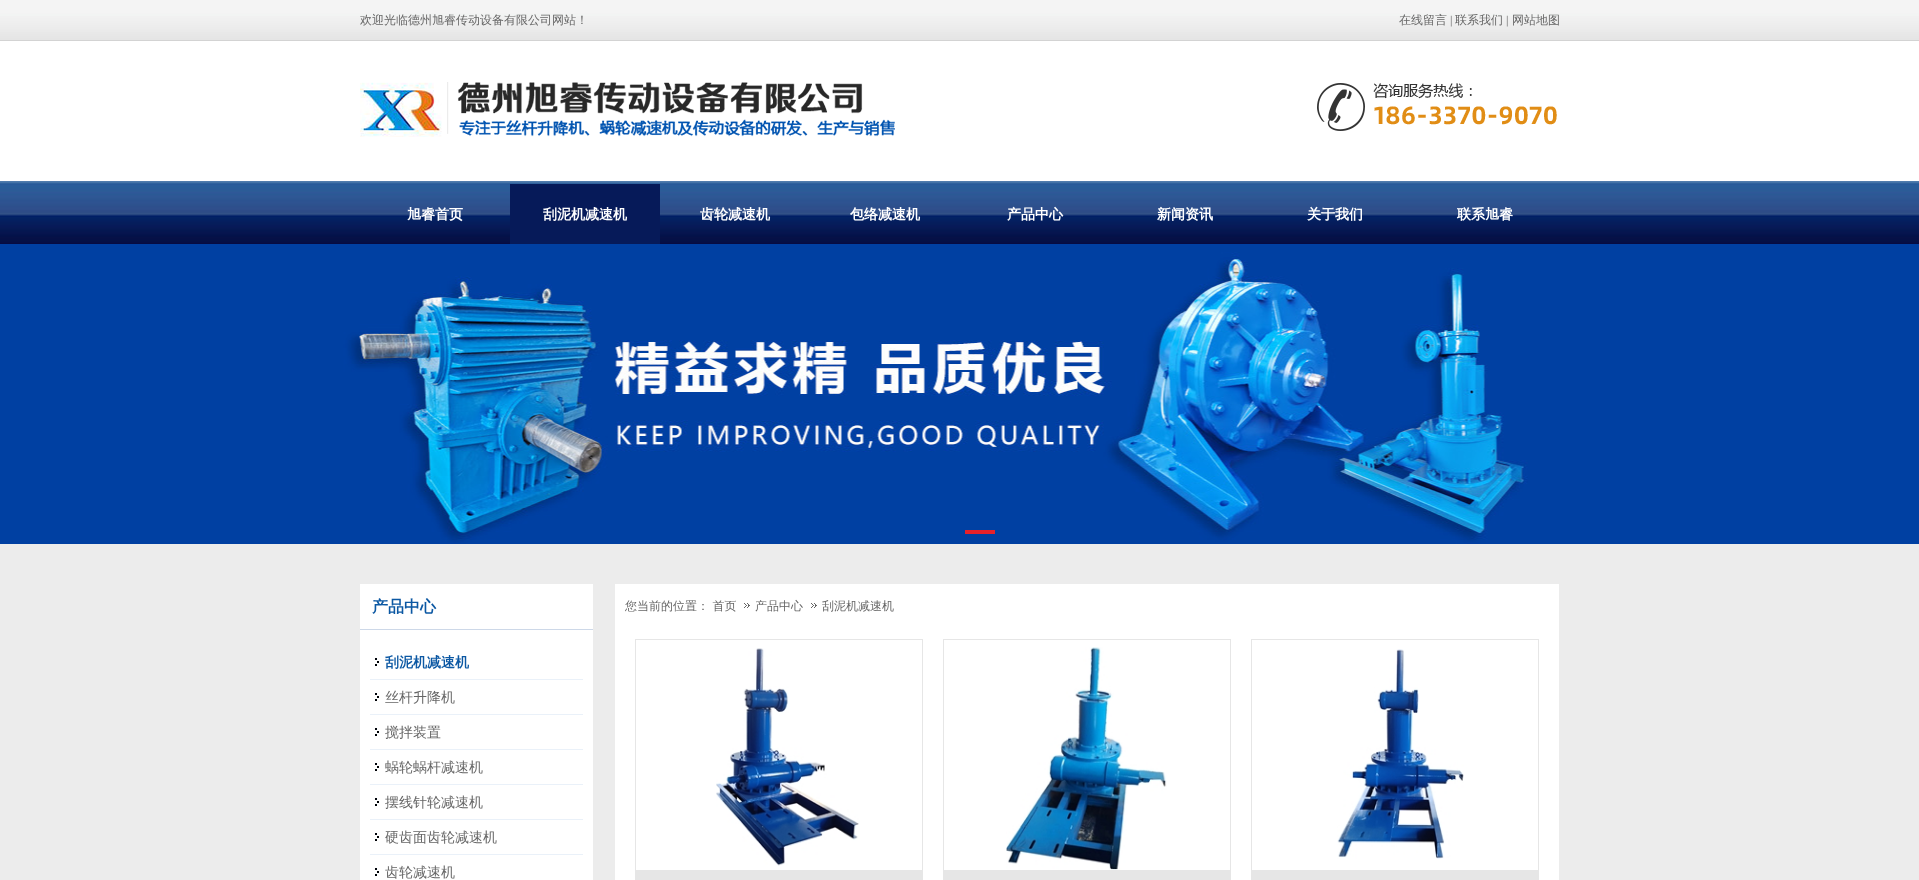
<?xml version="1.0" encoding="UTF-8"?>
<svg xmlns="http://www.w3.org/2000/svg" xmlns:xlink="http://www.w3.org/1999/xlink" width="1919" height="880">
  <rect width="100%" height="100%" fill="#ffffff" />
  <image x="0" y="0" width="1919" height="244" xlink:href="image1.png" />
  <image x="360" y="82" width="535" height="55" xlink:href="image2.png" />
  <image x="1317" y="83" width="240" height="48" xlink:href="image3.png" />
  <rect x="510" y="184" width="150" height="60" fill="#061a59" />
  <image x="0" y="244" width="1919" height="300" xlink:href="image4.png" />
  <rect x="965" y="530" width="30" height="4" fill="#e6212a" />
  <rect y="544" width="1919" height="336" fill="#ececec" />
  <rect x="360" y="584" width="233" height="296" fill="#ffffff" />
  <rect x="360" y="629" width="233" height="1" fill="#cdd8e8" />
  <rect x="370" y="679" width="213" height="1" fill="#eaf1f9" />
  <image x="375" y="658" width="4" height="8" xlink:href="image5.png" />
  <rect x="370" y="714" width="213" height="1" fill="#eaf1f9" />
  <image x="375" y="693" width="4" height="8" xlink:href="image5.png" />
  <rect x="370" y="749" width="213" height="1" fill="#eaf1f9" />
  <image x="375" y="728" width="4" height="8" xlink:href="image5.png" />
  <rect x="370" y="784" width="213" height="1" fill="#eaf1f9" />
  <image x="375" y="763" width="4" height="8" xlink:href="image5.png" />
  <rect x="370" y="819" width="213" height="1" fill="#eaf1f9" />
  <image x="375" y="798" width="4" height="8" xlink:href="image5.png" />
  <rect x="370" y="854" width="213" height="1" fill="#eaf1f9" />
  <image x="375" y="833" width="4" height="8" xlink:href="image5.png" />
  <image x="375" y="868" width="4" height="8" xlink:href="image5.png" />
  <rect x="615" y="584" width="944" height="296" fill="#ffffff" />
  <image x="744" y="603" width="6" height="5" xlink:href="image6.png" />
  <image x="811" y="603" width="6" height="5" xlink:href="image6.png" />
  <rect x="635.5" y="639.5" width="287" height="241" fill="none" stroke="#e6e6e6" />
  <image x="716" y="648" width="143" height="218" xlink:href="image7.png" />
  <rect x="636" y="870" width="286" height="10" fill="#e6e6e6" />
  <rect x="943.5" y="639.5" width="287" height="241" fill="none" stroke="#e6e6e6" />
  <image x="1006" y="647" width="161" height="223" xlink:href="image8.png" />
  <rect x="944" y="870" width="286" height="10" fill="#e6e6e6" />
  <rect x="1251.5" y="639.5" width="287" height="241" fill="none" stroke="#e6e6e6" />
  <image x="1337" y="649" width="127" height="210" xlink:href="image9.png" />
  <rect x="1252" y="870" width="286" height="10" fill="#e6e6e6" />
  <text x="360" y="24" style="font-family: WenQuanYi Zen Hei; font-size: 12px; font-weight: 500; fill: #666666">欢迎光临德州旭睿传动设备有限公司网站！</text>
  <text x="1399" y="24" style="font-family: WenQuanYi Zen Hei; font-size: 12px; font-weight: 500; fill: #666666">在线留言</text>
  <text x="1450" y="24" style="font-family: Liberation Serif; font-size: 12px; fill: #666666">|</text>
  <text x="1455" y="24" style="font-family: WenQuanYi Zen Hei; font-size: 12px; font-weight: 500; fill: #666666">联系我们</text>
  <text x="1506" y="24" style="font-family: Liberation Serif; font-size: 12px; fill: #666666">|</text>
  <text x="1512" y="24" style="font-family: WenQuanYi Zen Hei; font-size: 12px; font-weight: 500; fill: #666666">网站地图</text>
  <text x="407" y="219" style="font-family: WenQuanYi Zen Hei; font-size: 14px; font-weight: bold; fill: #ffffff">旭睿首页</text>
  <text x="543" y="219" style="font-family: WenQuanYi Zen Hei; font-size: 14px; font-weight: bold; fill: #ffffff">刮泥机减速机</text>
  <text x="700" y="219" style="font-family: WenQuanYi Zen Hei; font-size: 14px; font-weight: bold; fill: #ffffff">齿轮减速机</text>
  <text x="850" y="219" style="font-family: WenQuanYi Zen Hei; font-size: 14px; font-weight: bold; fill: #ffffff">包络减速机</text>
  <text x="1007" y="219" style="font-family: WenQuanYi Zen Hei; font-size: 14px; font-weight: bold; fill: #ffffff">产品中心</text>
  <text x="1157" y="219" style="font-family: WenQuanYi Zen Hei; font-size: 14px; font-weight: bold; fill: #ffffff">新闻资讯</text>
  <text x="1307" y="219" style="font-family: WenQuanYi Zen Hei; font-size: 14px; font-weight: bold; fill: #ffffff">关于我们</text>
  <text x="1457" y="219" style="font-family: WenQuanYi Zen Hei; font-size: 14px; font-weight: bold; fill: #ffffff">联系旭睿</text>
  <text x="372" y="612" style="font-family: WenQuanYi Zen Hei; font-size: 16px; font-weight: bold; fill: #0c58a3">产品中心</text>
  <text x="385" y="667" style="font-family: WenQuanYi Zen Hei; font-size: 14px; font-weight: bold; fill: #0c58a3">刮泥机减速机</text>
  <text x="385" y="702" style="font-family: WenQuanYi Zen Hei; font-size: 14px; font-weight: 500; fill: #666666">丝杆升降机</text>
  <text x="385" y="737" style="font-family: WenQuanYi Zen Hei; font-size: 14px; font-weight: 500; fill: #666666">搅拌装置</text>
  <text x="385" y="772" style="font-family: WenQuanYi Zen Hei; font-size: 14px; font-weight: 500; fill: #666666">蜗轮蜗杆减速机</text>
  <text x="385" y="807" style="font-family: WenQuanYi Zen Hei; font-size: 14px; font-weight: 500; fill: #666666">摆线针轮减速机</text>
  <text x="385" y="842" style="font-family: WenQuanYi Zen Hei; font-size: 14px; font-weight: 500; fill: #666666">硬齿面齿轮减速机</text>
  <text x="385" y="877" style="font-family: WenQuanYi Zen Hei; font-size: 14px; font-weight: 500; fill: #666666">齿轮减速机</text>
  <text x="625" y="610" style="font-family: WenQuanYi Zen Hei; font-size: 12px; font-weight: 500; fill: #666666">您当前的位置： 首页</text>
  <text x="755" y="610" style="font-family: WenQuanYi Zen Hei; font-size: 12px; font-weight: 500; fill: #666666">产品中心</text>
  <text x="822" y="610" style="font-family: WenQuanYi Zen Hei; font-size: 12px; font-weight: 500; fill: #666666">刮泥机减速机</text>
</svg>
